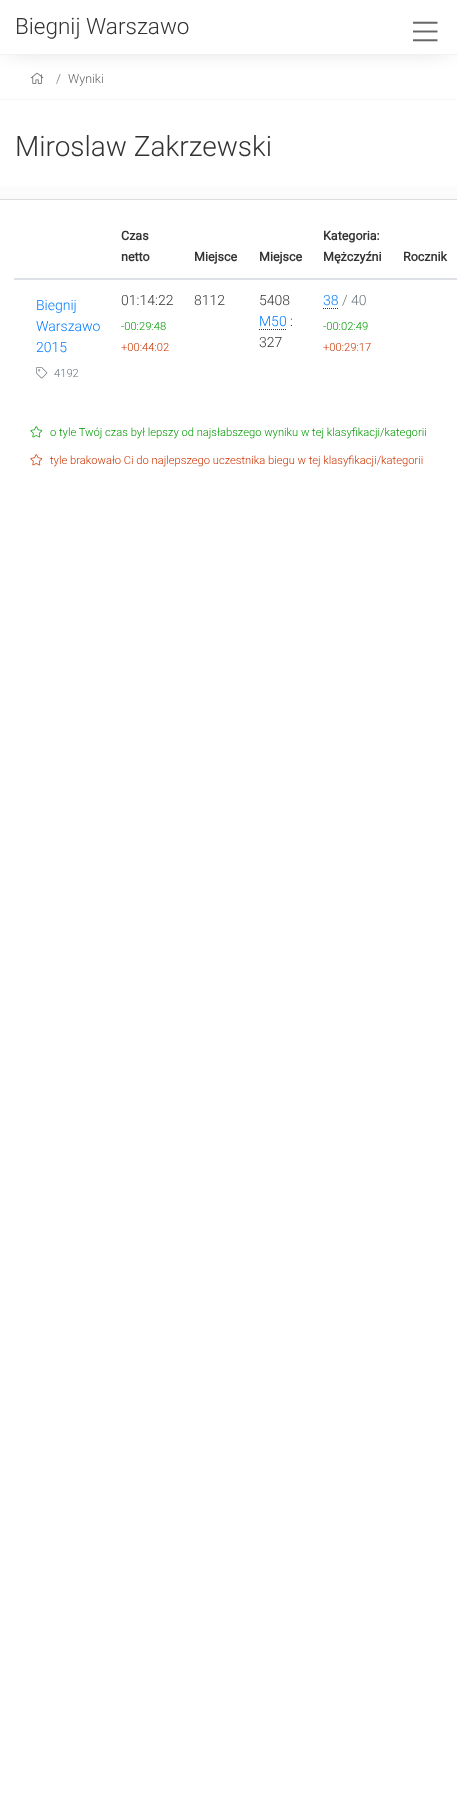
<?xml version="1.0" encoding="UTF-8"?>
<svg xmlns="http://www.w3.org/2000/svg" xmlns:xlink="http://www.w3.org/1999/xlink" width="457" height="1800">
  <defs>
    <clipPath id="clip1"><rect x="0" y="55" width="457" height="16" /></clipPath>
    <linearGradient id="g1" gradientUnits="userSpaceOnUse" x1="229" y1="115" x2="229" y2="199"><stop offset="0.68" stop-color="#ffffff" /><stop offset="1" stop-color="#fafafa" /></linearGradient>
  </defs>
  <rect width="100%" height="100%" fill="#ffffff" />
  <g clip-path="url(#clip1)">
    <rect x="9" y="8" width="439" height="37" fill="#b8b8b8" filter="blur(12.5px)" />
  </g>
  <rect y="54" width="457" height="1" fill="#f2f2f2" />
  <image x="413" y="21" width="25" height="21" xlink:href="image1.png" />
  <rect y="99" width="457" height="1" fill="#f6f6f6" />
  <image x="30" y="72" width="14" height="12" xlink:href="image2.png" />
  <rect y="186" width="457" height="13" fill="url(#g1)" />
  <rect y="199" width="457" height="1" fill="#dddddd" />
  <rect x="14" y="278" width="443" height="2" fill="#dee2e6" />
  <image x="36" y="367" width="12" height="12" xlink:href="image3.png" />
  <path d="M 259 329.5 h 28" fill="none" stroke="#333333" stroke-dasharray="1 1" />
  <path d="M 323 308.5 h 16" fill="none" stroke="#333333" stroke-dasharray="1 1" />
  <image x="30" y="426" width="13" height="12" xlink:href="image4.png" />
  <image x="30" y="454" width="13" height="12" xlink:href="image5.png" />
  <text x="15" y="34" style="font-family: Roboto; font-size: 22.5px; font-weight: 300; fill: #333333">Biegnij Warszawo</text>
  <text x="56" y="83" style="font-family: Roboto; font-size: 12.5px; font-weight: 300; fill: #6c757d">/</text>
  <text x="68" y="83" style="font-family: Roboto; font-size: 12.5px; font-weight: 300; fill: #666666">Wyniki</text>
  <text x="15" y="156" style="font-family: Roboto; font-size: 28px; font-weight: 300; fill: #333333">Miroslaw Zakrzewski</text>
  <text x="121" y="240" style="font-family: Roboto; font-size: 12.5px; font-weight: bold; fill: #333333">Czas</text>
  <text x="121" y="261" style="font-family: Roboto; font-size: 12.5px; font-weight: bold; fill: #333333">netto</text>
  <text x="194" y="261" style="font-family: Roboto; font-size: 12.5px; font-weight: bold; fill: #333333">Miejsce</text>
  <text x="259" y="261" style="font-family: Roboto; font-size: 12.5px; font-weight: bold; fill: #333333">Miejsce</text>
  <text x="323" y="240" style="font-family: Roboto; font-size: 12.5px; font-weight: bold; fill: #333333">Kategoria:</text>
  <text x="323" y="261" style="font-family: Roboto; font-size: 12.5px; font-weight: bold; fill: #333333">Mężczyźni</text>
  <text x="403" y="261" style="font-family: Roboto; font-size: 12.5px; font-weight: bold; fill: #333333">Rocznik</text>
  <text x="36" y="310" style="font-family: Roboto; font-size: 14px; font-weight: 300; fill: #007bff">Biegnij</text>
  <text x="36" y="331" style="font-family: Roboto; font-size: 14px; font-weight: 300; fill: #007bff">Warszawo</text>
  <text x="36" y="352" style="font-family: Roboto; font-size: 14px; font-weight: 300; fill: #007bff">2015</text>
  <text x="54" y="377" style="font-family: Roboto; font-size: 11.2px; font-weight: 300; fill: #6c757d">4192</text>
  <text x="121" y="305" style="font-family: Roboto; font-size: 14px; font-weight: 300; fill: #333333">01:14:22</text>
  <text x="121" y="330" style="font-family: Roboto; font-size: 11.2px; font-weight: 300; fill: #009900">-00:29:48</text>
  <text x="121" y="351" style="font-family: Roboto; font-size: 11.2px; font-weight: 300; fill: #cc3300">+00:44:02</text>
  <text x="194" y="305" style="font-family: Roboto; font-size: 14px; font-weight: 300; fill: #333333">8112</text>
  <text x="259" y="305" style="font-family: Roboto; font-size: 14px; font-weight: 300; fill: #333333">5408</text>
  <text x="259" y="326" style="font-family: Roboto; font-size: 14px; font-weight: 300; fill: #007bff">M50</text>
  <text x="290" y="326" style="font-family: Roboto; font-size: 14px; font-weight: 300; fill: #333333">:</text>
  <text x="259" y="347" style="font-family: Roboto; font-size: 14px; font-weight: 300; fill: #333333">327</text>
  <text x="323" y="305" style="font-family: Roboto; font-size: 14px; font-weight: 300; fill: #007bff">38</text>
  <text x="342" y="305" style="font-family: Roboto; font-size: 14px; font-weight: 300; fill: #6c757d">/ 40</text>
  <text x="323" y="330" style="font-family: Roboto; font-size: 11.2px; font-weight: 300; fill: #009900">-00:02:49</text>
  <text x="323" y="351" style="font-family: Roboto; font-size: 11.2px; font-weight: 300; fill: #cc3300">+00:29:17</text>
  <text x="50" y="436" style="font-family: Roboto; font-size: 11.2px; font-weight: 300; fill: #009900">o tyle Twój czas był lepszy od najsłabszego wyniku w tej klasyfikacji/kategorii</text>
  <text x="50" y="464" style="font-family: Roboto; font-size: 11.2px; font-weight: 300; fill: #cc3300">tyle brakowało Ci do najlepszego uczestnika biegu w tej klasyfikacji/kategorii</text>
</svg>
